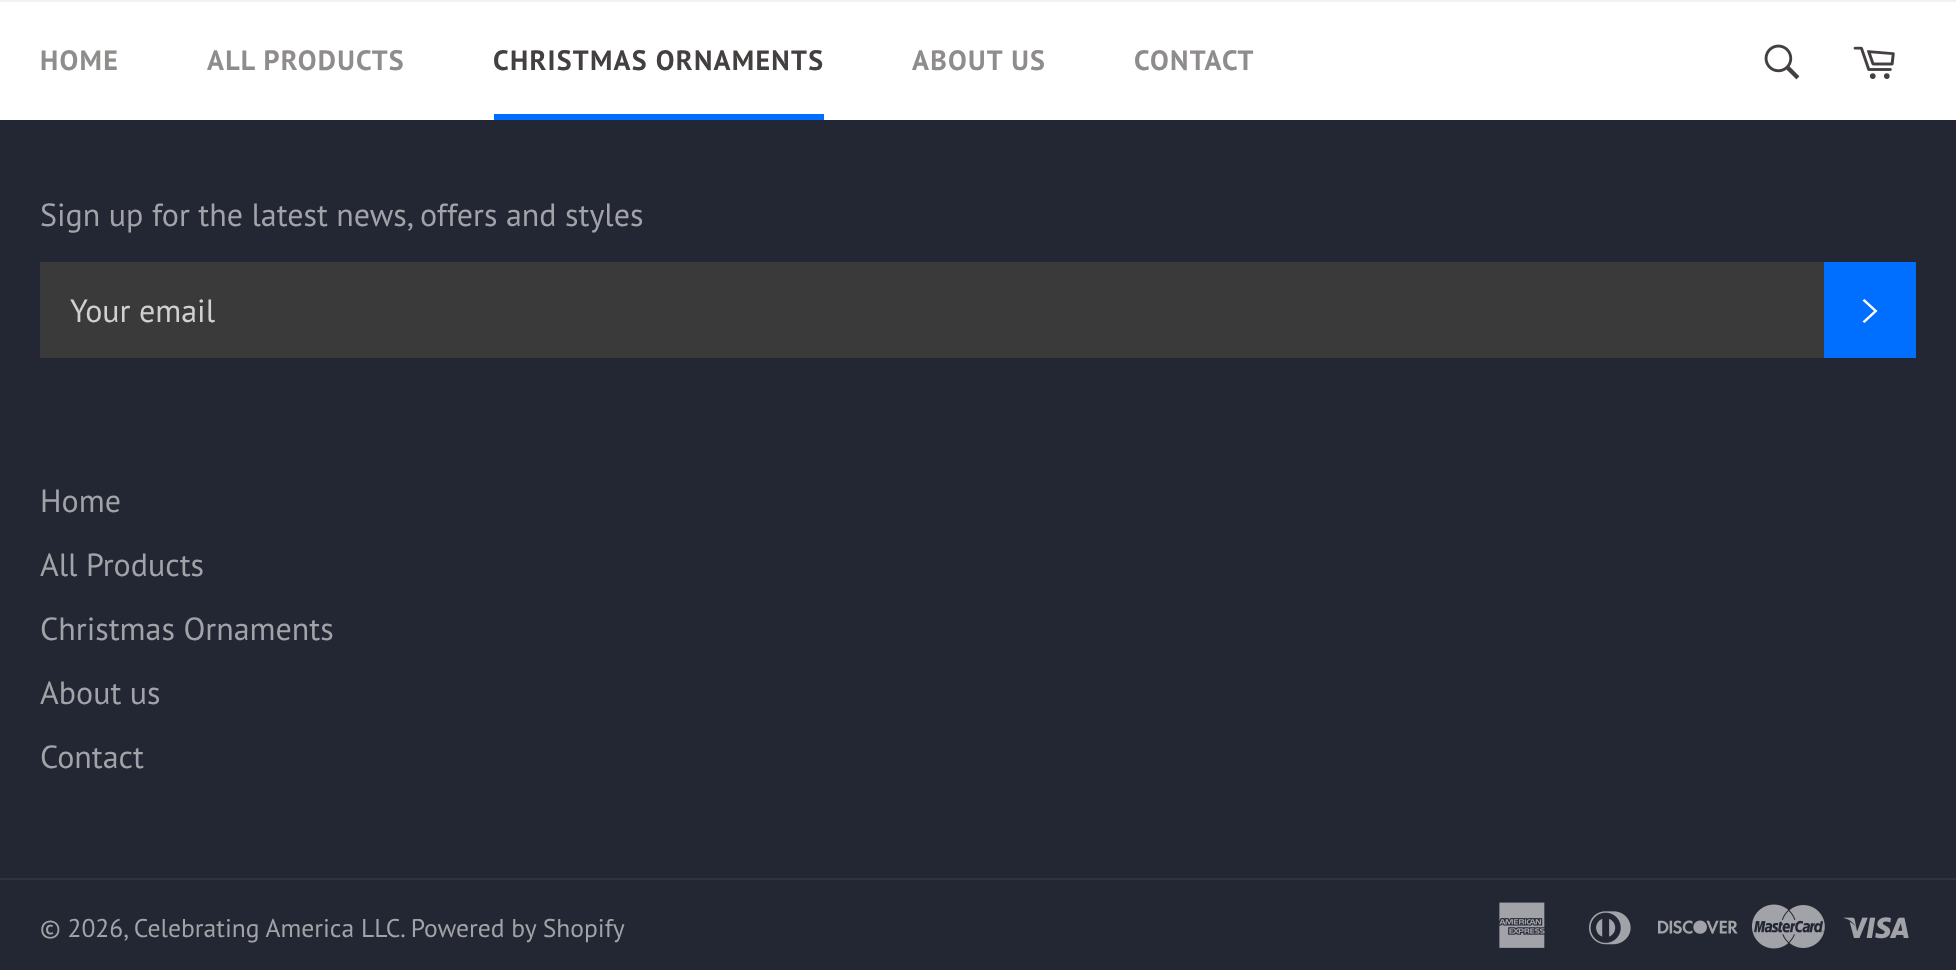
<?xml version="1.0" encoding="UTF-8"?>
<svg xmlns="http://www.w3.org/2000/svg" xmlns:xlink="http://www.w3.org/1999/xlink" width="1956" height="970">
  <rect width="100%" height="100%" fill="#232733" />
  <rect y="2" width="1956" height="118" fill="#ffffff" />
  <rect width="1956" height="2" fill="#f2f2f2" />
  <rect x="494" y="114" width="330" height="6" fill="#006eff" />
  <image x="1764" y="44" width="36" height="36" xlink:href="image1.png" />
  <image x="1853" y="46" width="42" height="33" xlink:href="image2.png" />
  <rect x="40" y="262" width="1784" height="96" fill="#3a3a3a" />
  <rect x="1824" y="262" width="92" height="96" fill="#006eff" />
  <path d="M 1862.5 300.5 l 2 -1.5 l 13 12 l -13 12 l -2 -1.5 l 11.5 -10.5 z" fill="#ffffff" />
  <rect y="878" width="1956" height="2" fill="#2d3342" />
  <image x="1499" y="902" width="46" height="46" xlink:href="image3.png" />
  <image x="1589" y="911" width="42" height="34" xlink:href="image4.png" />
  <image x="1658" y="920" width="80" height="14" xlink:href="image5.png" />
  <image x="1752" y="904" width="73" height="45" xlink:href="image6.png" />
  <image x="1843" y="917" width="66" height="22" xlink:href="image7.png" />
  <text x="40" y="70" style="font-family: PT Sans; font-size: 28px; font-weight: bold; letter-spacing: 1.25px; fill: #8f8c8c">HOME</text>
  <text x="207" y="70" style="font-family: PT Sans; font-size: 28px; font-weight: bold; letter-spacing: 1.25px; fill: #8f8c8c">ALL PRODUCTS</text>
  <text x="493" y="70" style="font-family: PT Sans; font-size: 28px; font-weight: bold; letter-spacing: 1.25px; fill: #444040">CHRISTMAS ORNAMENTS</text>
  <text x="912" y="70" style="font-family: PT Sans; font-size: 28px; font-weight: bold; letter-spacing: 1.25px; fill: #8f8c8c">ABOUT US</text>
  <text x="1134" y="70" style="font-family: PT Sans; font-size: 28px; font-weight: bold; letter-spacing: 1.25px; fill: #8f8c8c">CONTACT</text>
  <text x="40" y="226" style="font-family: PT Sans; font-size: 32px; fill: #a2a3a8">Sign up for the latest news, offers and styles</text>
  <text x="70" y="322" style="font-family: PT Sans; font-size: 32px; fill: #d0d0d0">Your email</text>
  <text x="40" y="512" style="font-family: PT Sans; font-size: 32px; fill: #a2a3a8">Home</text>
  <text x="40" y="576" style="font-family: PT Sans; font-size: 32px; fill: #a2a3a8">All Products</text>
  <text x="40" y="640" style="font-family: PT Sans; font-size: 32px; fill: #a2a3a8">Christmas Ornaments</text>
  <text x="40" y="704" style="font-family: PT Sans; font-size: 32px; fill: #a2a3a8">About us</text>
  <text x="40" y="768" style="font-family: PT Sans; font-size: 32px; fill: #a2a3a8">Contact</text>
  <text x="40" y="937" style="font-family: PT Sans; font-size: 25.6px; fill: #a2a3a8">© 2026, Celebrating America LLC. Powered by Shopify</text>
</svg>
